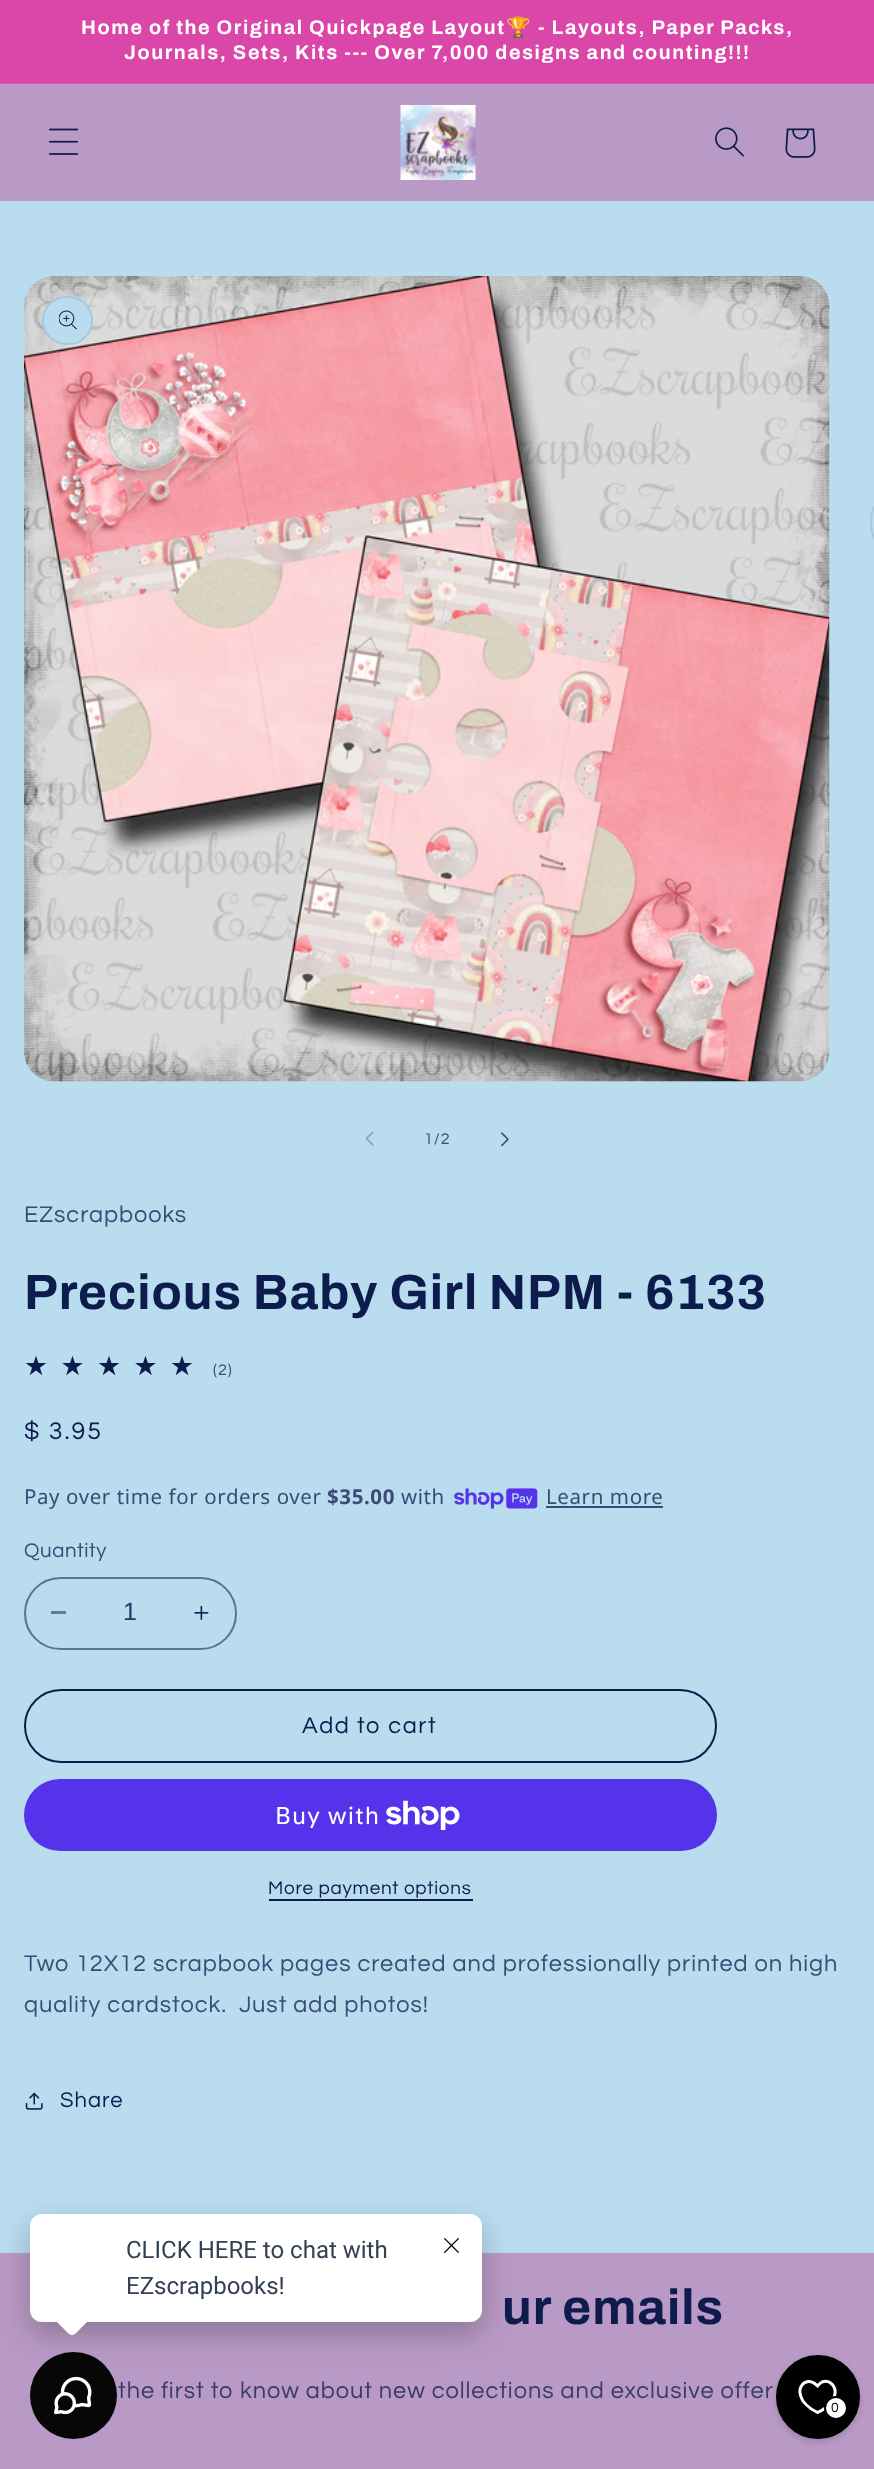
<?xml version="1.0" encoding="UTF-8"?>
<svg xmlns="http://www.w3.org/2000/svg" xmlns:xlink="http://www.w3.org/1999/xlink" width="874" height="2469">
  <defs>
    <linearGradient id="g1" gradientUnits="userSpaceOnUse" x1="24" y1="1366" x2="207" y2="1366"><stop offset="1" stop-color="#0e1b4d" /><stop offset="1" stop-color="#9fbfd7" /></linearGradient>
  </defs>
  <rect width="100%" height="100%" fill="#b9dcef" />
  <rect width="874" height="83" fill="#db47a9" />
  <rect y="83" width="874" height="1" fill="#de56b0" />
  <rect y="85" width="874" height="116" fill="#b99ac6" />
  <rect y="84" width="874" height="1" fill="#bfa2cb" />
  <image x="48" y="128" width="31" height="27" xlink:href="image1.png" />
  <image x="400" y="105" width="76" height="75" xlink:href="image2.png" />
  <image x="715" y="127" width="29" height="30" xlink:href="image3.png" />
  <image x="785" y="128" width="31" height="30" xlink:href="image4.png" />
  <image x="24" y="276" width="806" height="806" xlink:href="image5.png" />
  <rect x="42" y="296" width="51" height="49" rx="24.5" fill="#b9dcef" />
  <rect x="43" y="297" width="49" height="47" rx="23.5" fill="none" stroke="#0e1b4d" stroke-opacity="0.1" stroke-width="2" />
  <image x="59" y="310" width="18" height="20" xlink:href="image6.png" />
  <rect x="871" y="498" width="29" height="49" rx="24" fill="none" stroke="#a8c9df" stroke-width="2" />
  <image x="365" y="1131" width="9" height="15" xlink:href="image7.png" />
  <image x="501" y="1132" width="8" height="15" xlink:href="image8.png" />
  <image x="454" y="1488" width="84" height="21" xlink:href="image9.png" />
  <rect x="546" y="1506" width="117" height="2" fill="#394b76" />
  <rect x="51" y="1611" width="15" height="3" fill="#647c9e" />
  <image x="194" y="1605" width="15" height="15" xlink:href="image10.png" />
  <rect x="25" y="1578" width="211" height="71" rx="35.5" fill="none" stroke="#5b7296" stroke-width="2" />
  <rect x="25" y="1690" width="691" height="72" rx="36" fill="none" stroke="#0e1b4d" stroke-width="2" />
  <rect x="24" y="1779" width="693" height="72" rx="36" fill="#5433eb" />
  <image x="386" y="1800" width="74" height="30" xlink:href="image11.png" />
  <rect x="269" y="1899" width="204" height="2" fill="#0e1b4d" />
  <image x="25" y="2092" width="18" height="18" xlink:href="image12.png" />
  <rect y="2253" width="874" height="216" fill="#b99ac6" />
  <circle cx="73.5" cy="2395.5" r="43.5" fill="#070707" />
  <image x="54" y="2376" width="38" height="39" xlink:href="image14.png" />
  <rect x="30" y="2226" width="452" height="108" rx="12" fill="#000000" fill-opacity="0.24" filter="blur(15px)" />
  <rect x="30" y="2214" width="452" height="108" rx="12" fill="#ffffff" />
  <path d="M 76 2299 l 13 13 c 2.5 2 2.5 6 0 8 l -13 13 c -2 2.5 -6 2.5 -8 0 l -13 -13 c -2.5 -2 -2.5 -6 0 -8 l 13 -13 c 2 -2.5 6 -2.5 8 0 z" fill="#ffffff" />
  <image x="444" y="2238" width="15" height="15" xlink:href="image13.png" />
  <rect x="776" y="2358" width="84" height="84" rx="42" fill="#000000" fill-opacity="0.15" filter="blur(3px)" />
  <circle cx="818" cy="2397" r="40.5" fill="#000000" stroke="#000000" stroke-width="3" />
  <path d="M 817.5 2412.5 c -7 -3.5 -15 -9 -17 -17 c -2.5 -8 3.5 -17 12.5 -13 c 1.5 0.5 3 2 4.5 3.5 c 1.5 -1.5 2.5 -3 4.5 -4 c 7.5 -3 14 4 13 11.5 c -1 9 -10 15.5 -17.5 19 z" fill="none" stroke="#ffffff" stroke-width="3" />
  <circle cx="836" cy="2408" r="11" fill="#ffffff" stroke="#000000" stroke-width="2" />
  <text x="81" y="34" style="font-family: Archivo; font-size: 19.8px; font-weight: bold; letter-spacing: 1.58px; fill: #ffffff">Home of the Original Quickpage Layout</text>
  <text x="506" y="34" style="font-family: Noto Color Emoji; font-size: 19.8px; font-weight: bold; letter-spacing: 1.58px; fill: #ffffff">🏆</text>
  <text x="538" y="34" style="font-family: Archivo; font-size: 19.8px; font-weight: bold; letter-spacing: 1.58px; fill: #ffffff">- Layouts, Paper Packs,</text>
  <text x="124" y="59" style="font-family: Archivo; font-size: 19.8px; font-weight: bold; letter-spacing: 1.58px; fill: #ffffff">Journals, Sets, Kits --- Over 7,000 designs and counting!!!</text>
  <text x="424" y="1144" style="font-family: Questrial; font-size: 16px; letter-spacing: 1px; fill: #394b76">1/2</text>
  <text x="24" y="1222" style="font-family: Questrial; font-size: 23.6px; letter-spacing: 0.95px; fill: #394b76">EZscrapbooks</text>
  <text x="24" y="1309" style="font-family: Archivo; font-size: 49.5px; font-weight: bold; letter-spacing: 1px; fill: #0e1b4d">Precious Baby Girl NPM - 6133</text>
  <text x="24" y="1375" style="font-family: DejaVu Sans; font-size: 26.75px; letter-spacing: 12.5px; fill: url(#g1)">★★★★★</text>
  <text x="213" y="1375" style="font-family: Questrial; font-size: 16px; letter-spacing: 1px; fill: #394b76">(2)</text>
  <text x="24" y="1439" style="font-family: Questrial; font-size: 25px; letter-spacing: 2px; fill: #0e1b4d">$ 3.95</text>
  <text x="24" y="1504" style="font-family: Noto Sans; font-size: 20.5px; letter-spacing: 0.6px; fill: #394b76">Pay over time for orders over</text>
  <text x="327" y="1504" style="font-family: Noto Sans; font-size: 20.5px; font-weight: bold; letter-spacing: 0.6px; fill: #394b76">$35.00</text>
  <text x="401" y="1504" style="font-family: Noto Sans; font-size: 20.5px; letter-spacing: 0.6px; fill: #394b76">with</text>
  <text x="546" y="1504" style="font-family: Noto Sans; font-size: 20.5px; letter-spacing: 0.6px; fill: #394b76">Learn more</text>
  <text x="24" y="1557" style="font-family: Questrial; font-size: 20.5px; letter-spacing: 0.6px; fill: #394b76">Quantity</text>
  <text x="123" y="1620" style="font-family: Liberation Sans; font-size: 25px; fill: #283865">1</text>
  <text x="302" y="1733" style="font-family: Questrial; font-size: 23.6px; letter-spacing: 1.58px; fill: #0e1b4d">Add to cart</text>
  <text x="275" y="1824" style="font-family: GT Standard; font-size: 24px; letter-spacing: 0.95px; fill: #ffffff">Buy with</text>
  <text x="268" y="1894" style="font-family: Questrial; font-size: 18.9px; letter-spacing: 0.75px; fill: #0e1b4d">More payment options</text>
  <text x="24" y="1971" style="font-family: Questrial; font-size: 23.6px; letter-spacing: 0.95px; fill: #394b76">Two 12X12 scrapbook pages created and professionally printed on high</text>
  <text x="24" y="2012" style="font-family: Questrial; font-size: 23.6px; letter-spacing: 0.95px; fill: #394b76" xml:space="preserve">quality cardstock.  Just add photos!</text>
  <text x="60" y="2107" style="font-family: Questrial; font-size: 22px; letter-spacing: 0.95px; fill: #0e1b4d">Share</text>
  <text x="126" y="2258" style="font-family: Roboto; font-size: 24px; fill: #344054">CLICK HERE to chat with</text>
  <text x="126" y="2294" style="font-family: Roboto; font-size: 24px; fill: #344054">EZscrapbooks!</text>
  <text x="502" y="2324" style="font-family: Archivo; font-size: 49.5px; font-weight: bold; letter-spacing: 1px; fill: #0e1b4d">ur emails</text>
  <text x="118" y="2398" style="font-family: Questrial; font-size: 23.6px; letter-spacing: 0.95px; fill: #393b6b">the first to know about new collections and exclusive offer</text>
  <text x="831" y="2412" style="font-family: Questrial; font-size: 14px; letter-spacing: 0.95px; fill: #000000">0</text>
</svg>
